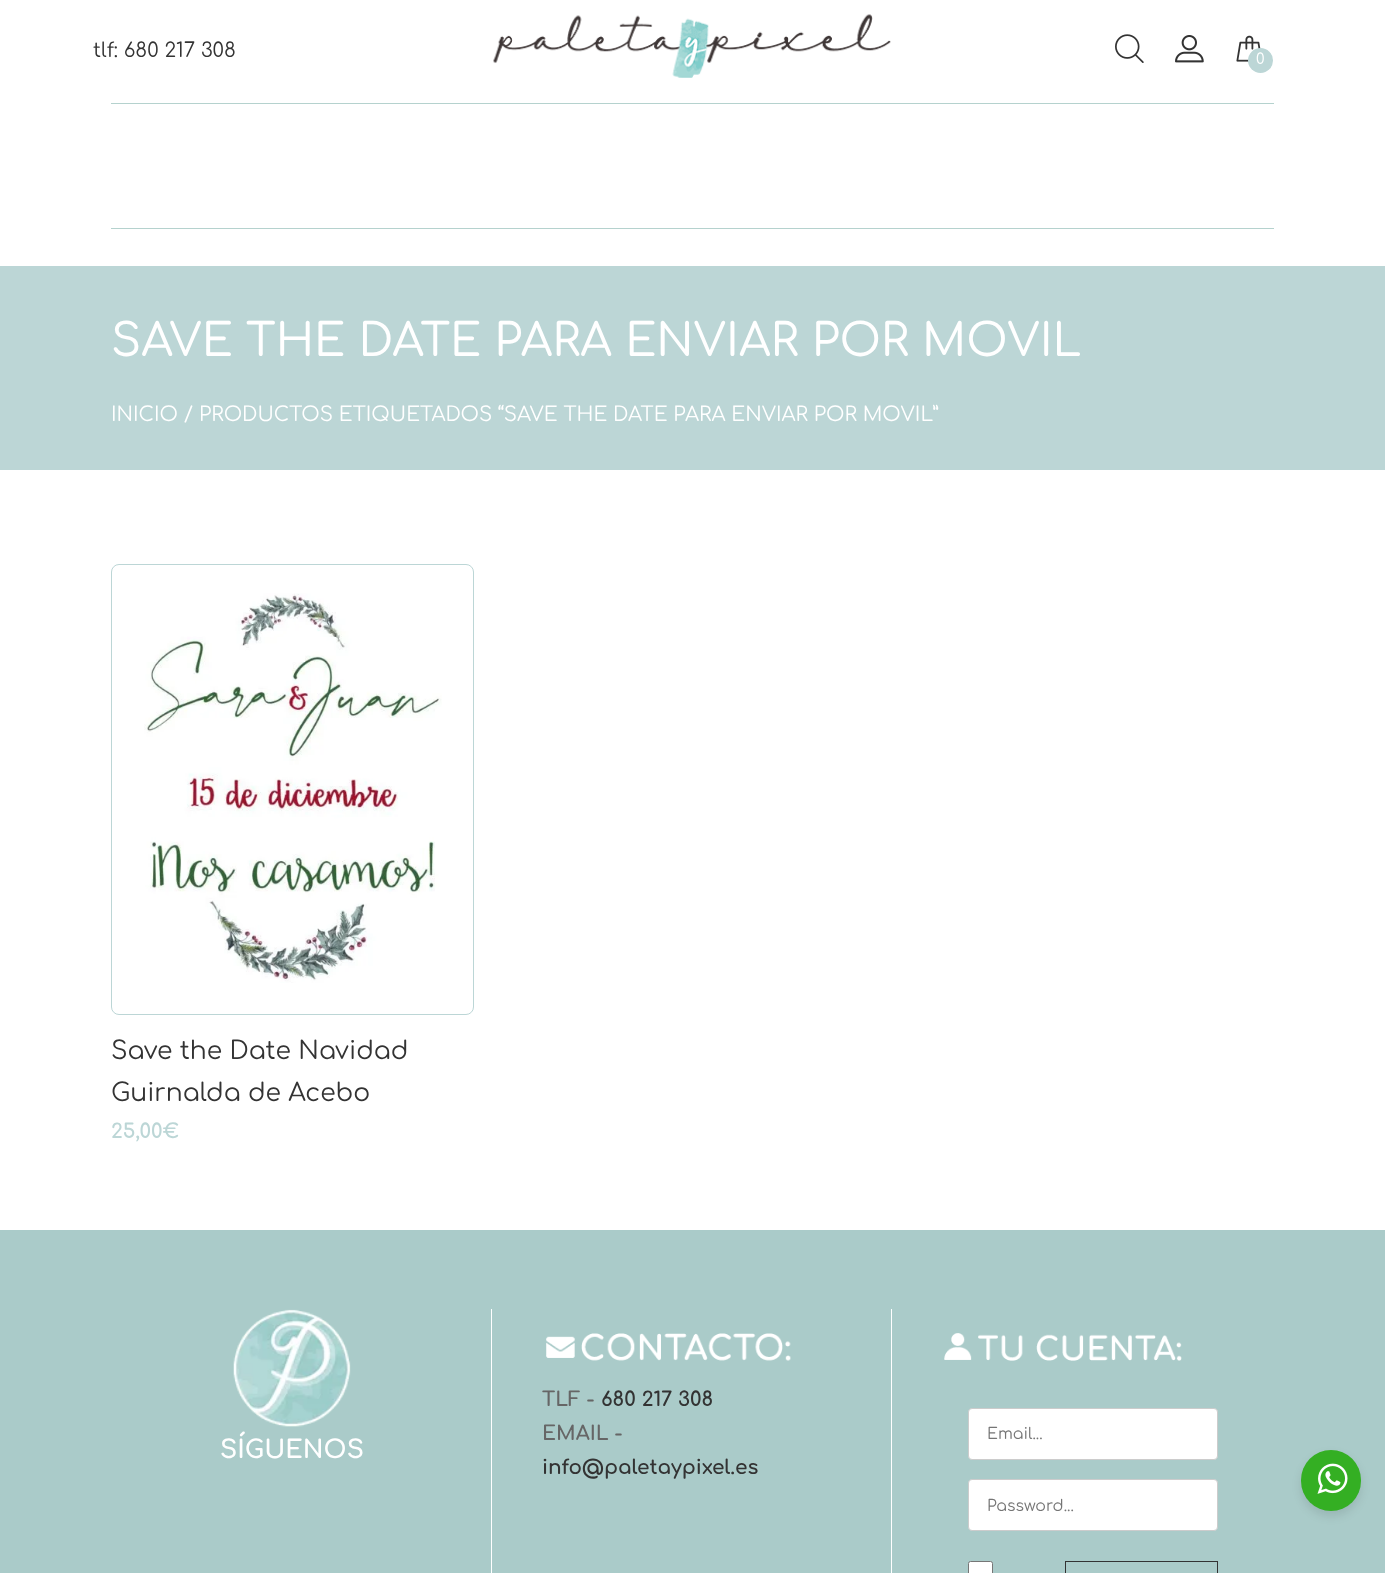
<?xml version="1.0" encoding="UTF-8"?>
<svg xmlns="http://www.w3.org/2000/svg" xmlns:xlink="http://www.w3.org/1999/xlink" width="1385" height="1573">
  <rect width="100%" height="100%" fill="#ffffff" />
  <image x="493" y="14" width="398" height="64" xlink:href="image1.png" />
  <image x="1115" y="34" width="29" height="29" xlink:href="image2.png" />
  <image x="1175" y="35" width="29" height="28" xlink:href="image3.png" />
  <image x="1236" y="35" width="25" height="27" xlink:href="image4.png" />
  <circle cx="1260.5" cy="60.5" r="12.5" fill="#bcd6d6" />
  <rect x="111" y="103" width="1163" height="1" fill="#b5d2ce" />
  <rect x="111" y="228" width="1163" height="1" fill="#b5d2ce" />
  <rect y="266" width="1385" height="204" fill="#bcd6d6" />
  <rect x="111.5" y="564.5" width="362" height="450" rx="7.5" fill="none" stroke="#bcd6d6" />
  <image x="144" y="593" width="298" height="390" xlink:href="image5.png" />
  <rect y="1230" width="1385" height="343" fill="#aacbc9" />
  <rect x="491" y="1309" width="1" height="264" fill="#ffffff" />
  <image x="233" y="1309" width="118" height="118" xlink:href="image6.png" />
  <rect x="891" y="1309" width="1" height="264" fill="#ffffff" />
  <image x="546" y="1333" width="245" height="28" xlink:href="image7.png" />
  <image x="944" y="1333" width="238" height="28" xlink:href="image8.png" />
  <rect x="968.5" y="1408.5" width="249" height="51" rx="3.5" fill="#ffffff" stroke="#cccccc" />
  <rect x="968.5" y="1479.5" width="249" height="51" rx="3.5" fill="#ffffff" stroke="#cccccc" />
  <rect x="968.5" y="1561.5" width="24" height="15" rx="2" fill="#ffffff" stroke="#767676" />
  <rect x="1065.5" y="1561.5" width="152" height="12" fill="none" stroke="#333333" />
  <rect x="1301" y="1455" width="60" height="61" rx="30" fill="#000000" fill-opacity="0.1" filter="blur(5px)" />
  <rect x="1301" y="1450" width="60" height="61" rx="30" fill="#34af23" />
  <image x="1317" y="1463" width="31" height="31" xlink:href="image9.png" />
  <text x="93" y="57" style="font-family: Comfortaa; font-size: 20px; fill: #333333">tlf: 680 217 308</text>
  <text x="1256" y="64" style="font-family: Comfortaa; font-size: 15px; fill: #ffffff">0</text>
  <text x="111" y="356" style="font-family: Comfortaa; font-size: 45px; font-weight: 500; fill: #ffffff">SAVE THE DATE PARA ENVIAR POR MOVIL</text>
  <text x="111" y="421" style="font-family: Comfortaa; font-size: 20px; fill: #ffffff">INICIO / PRODUCTOS ETIQUETADOS “SAVE THE DATE PARA ENVIAR POR MOVIL”</text>
  <text x="111" y="1059" style="font-family: Comfortaa; font-size: 25px; fill: #333333">Save the Date Navidad</text>
  <text x="111" y="1101" style="font-family: Comfortaa; font-size: 25px; fill: #333333">Guirnalda de Acebo</text>
  <text x="111" y="1138" style="font-family: Comfortaa; font-size: 20px; font-weight: bold; fill: #bcd6d6">25,00€</text>
  <text x="220" y="1458" style="font-family: Comfortaa; font-size: 25px; font-weight: bold; fill: #ffffff">SÍGUENOS</text>
  <text x="542" y="1406" style="font-family: Comfortaa; font-size: 20px; font-weight: bold; fill: #666666">TLF -</text>
  <text x="601" y="1406" style="font-family: Comfortaa; font-size: 20px; font-weight: bold; fill: #333333">680 217 308</text>
  <text x="542" y="1440" style="font-family: Comfortaa; font-size: 20px; font-weight: bold; fill: #666666">EMAIL -</text>
  <text x="542" y="1474" style="font-family: Comfortaa; font-size: 20px; font-weight: bold; fill: #333333">info@paletaypixel.es</text>
  <text x="987" y="1439" style="font-family: Comfortaa; font-size: 15.75px; fill: #757575">Email...</text>
  <text x="987" y="1511" style="font-family: Comfortaa; font-size: 15.75px; fill: #757575">Password...</text>
</svg>
